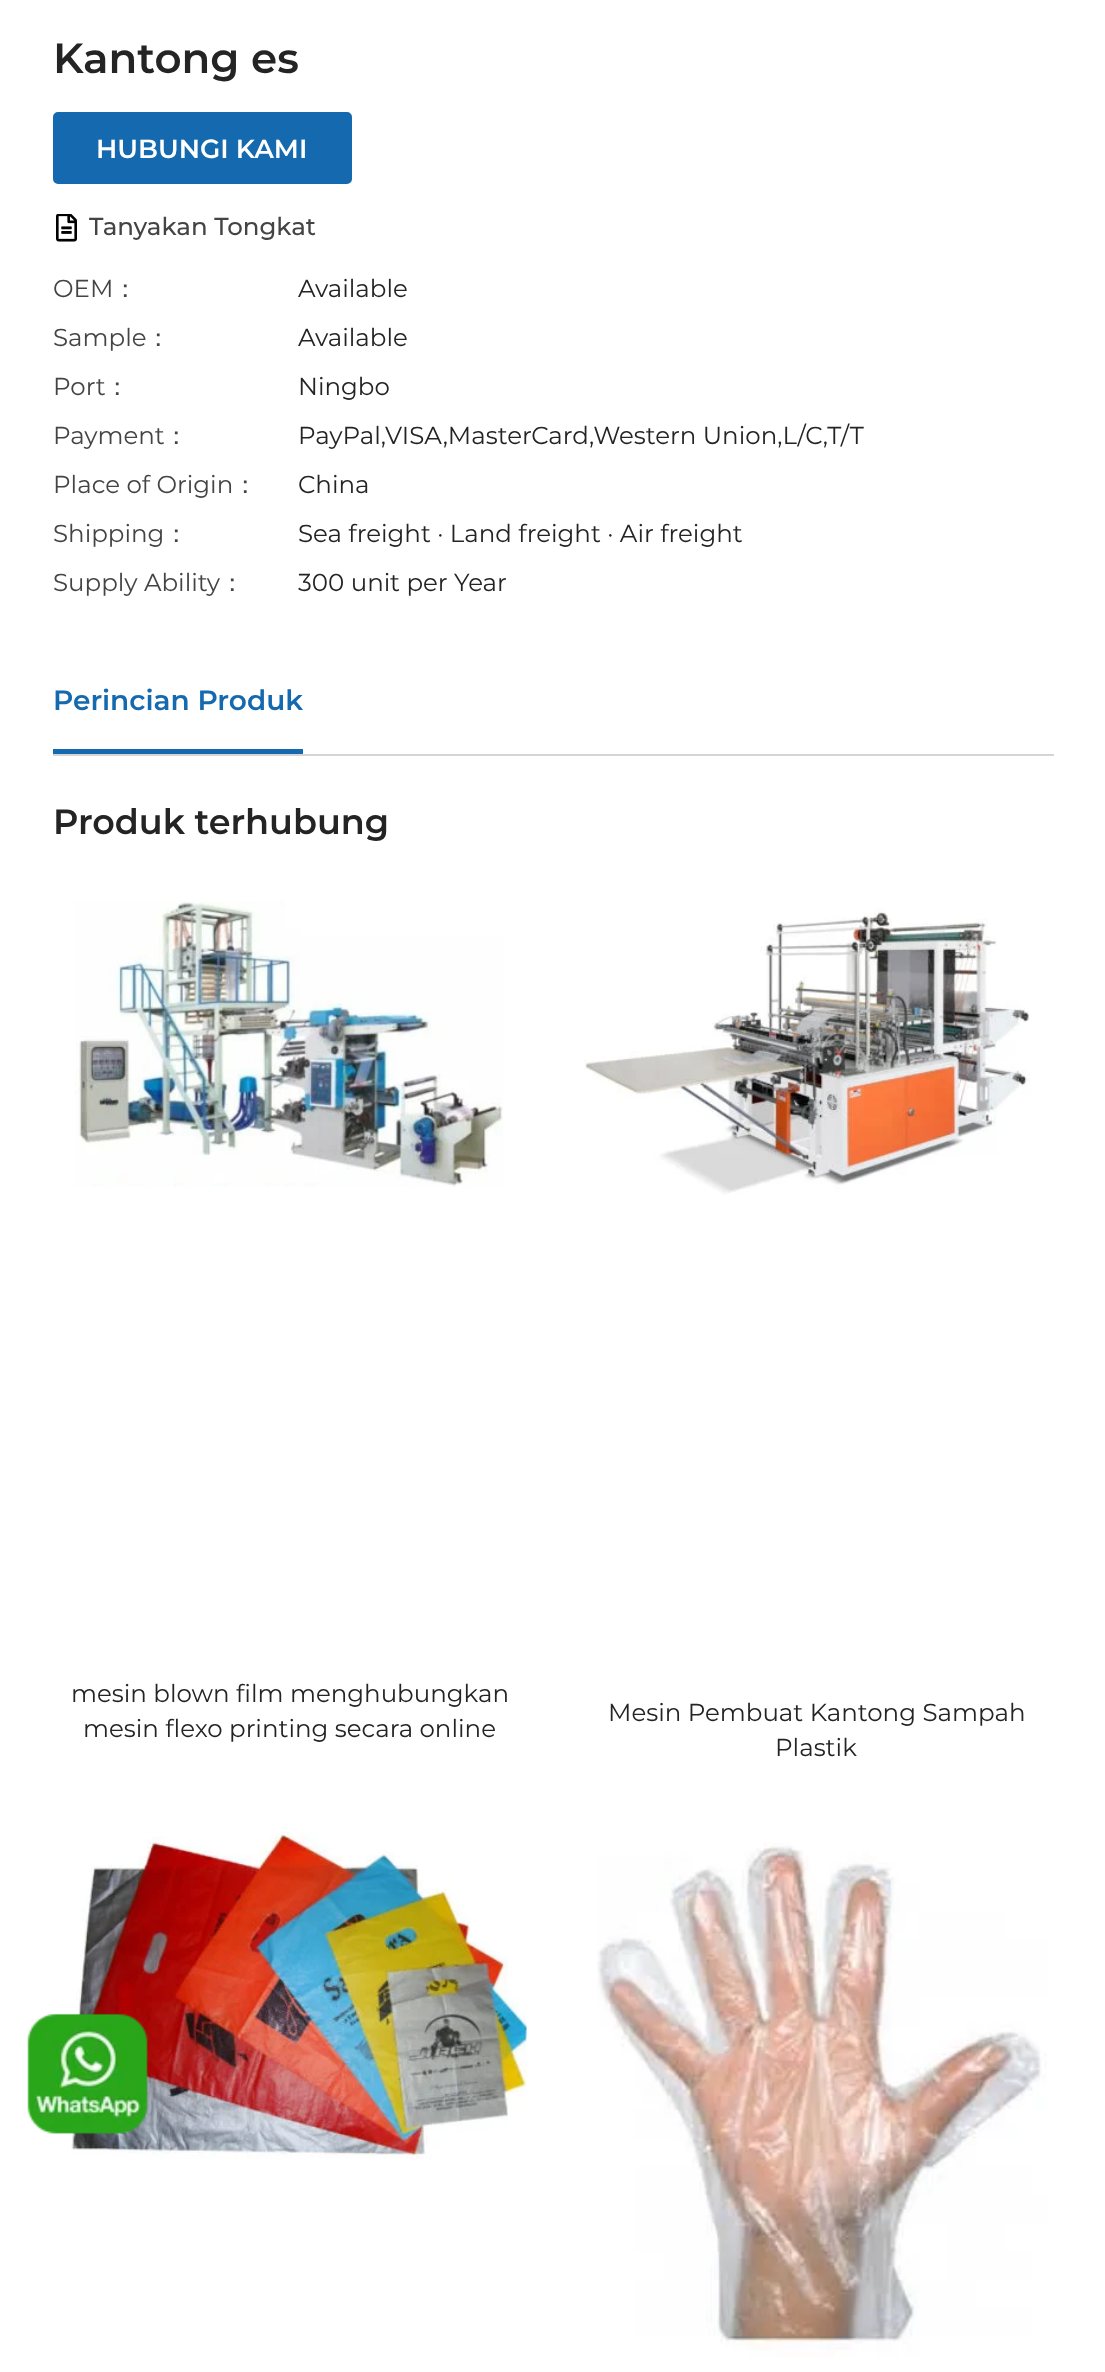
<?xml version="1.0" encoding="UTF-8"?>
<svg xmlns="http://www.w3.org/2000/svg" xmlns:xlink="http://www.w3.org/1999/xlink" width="1105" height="2372">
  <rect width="100%" height="100%" fill="#ffffff" />
  <rect x="54" y="113" width="297" height="70" rx="4" fill="#1569ae" stroke="#1569ae" stroke-width="2" />
  <image x="56" y="214" width="21" height="28" xlink:href="image1.png" />
  <rect x="53" y="754" width="1001" height="2" fill="#d5d5d5" />
  <rect x="53" y="749" width="250" height="5" fill="#1569ae" />
  <image x="75" y="901" width="428" height="286" xlink:href="image2.png" />
  <image x="584" y="908" width="446" height="287" xlink:href="image3.png" />
  <image x="71" y="1832" width="456" height="327" xlink:href="image4.png" />
  <image x="597" y="1842" width="450" height="515" xlink:href="image5.png" />
  <image x="27" y="2013" width="121" height="121" xlink:href="image6.png" />
  <text x="53" y="73" style="font-family: Montserrat; font-size: 42px; font-weight: 600; fill: #242424">Kantong es</text>
  <text x="96" y="158" style="font-family: Montserrat; font-size: 26.25px; font-weight: 600; fill: #ffffff">HUBUNGI KAMI</text>
  <text x="89" y="235" style="font-family: Montserrat; font-size: 24.5px; font-weight: 500; fill: #444444">Tanyakan Tongkat</text>
  <text x="53" y="297" style="font-family: Montserrat; font-size: 24.5px; fill: #444444">OEM</text>
  <text x="113" y="297" style="font-family: WenQuanYi Zen Hei; font-size: 24.5px; font-weight: 500; fill: #444444">：</text>
  <text x="298" y="297" style="font-family: Montserrat; font-size: 24.5px; fill: #242424">Available</text>
  <text x="53" y="346" style="font-family: Montserrat; font-size: 24.5px; fill: #444444">Sample</text>
  <text x="146" y="346" style="font-family: WenQuanYi Zen Hei; font-size: 24.5px; font-weight: 500; fill: #444444">：</text>
  <text x="298" y="346" style="font-family: Montserrat; font-size: 24.5px; fill: #242424">Available</text>
  <text x="53" y="395" style="font-family: Montserrat; font-size: 24.5px; fill: #444444">Port</text>
  <text x="105" y="395" style="font-family: WenQuanYi Zen Hei; font-size: 24.5px; font-weight: 500; fill: #444444">：</text>
  <text x="298" y="395" style="font-family: Montserrat; font-size: 24.5px; fill: #242424">Ningbo</text>
  <text x="53" y="444" style="font-family: Montserrat; font-size: 24.5px; fill: #444444">Payment</text>
  <text x="164" y="444" style="font-family: WenQuanYi Zen Hei; font-size: 24.5px; font-weight: 500; fill: #444444">：</text>
  <text x="298" y="444" style="font-family: Montserrat; font-size: 24.5px; fill: #242424">PayPal,VISA,MasterCard,Western Union,L/C,T/T</text>
  <text x="53" y="493" style="font-family: Montserrat; font-size: 24.5px; fill: #444444">Place of Origin</text>
  <text x="233" y="493" style="font-family: WenQuanYi Zen Hei; font-size: 24.5px; font-weight: 500; fill: #444444">：</text>
  <text x="298" y="493" style="font-family: Montserrat; font-size: 24.5px; fill: #242424">China</text>
  <text x="53" y="542" style="font-family: Montserrat; font-size: 24.5px; fill: #444444">Shipping</text>
  <text x="164" y="542" style="font-family: WenQuanYi Zen Hei; font-size: 24.5px; font-weight: 500; fill: #444444">：</text>
  <text x="298" y="542" style="font-family: Montserrat; font-size: 24.5px; fill: #242424">Sea freight · Land freight · Air freight</text>
  <text x="53" y="591" style="font-family: Montserrat; font-size: 24.5px; fill: #444444">Supply Ability</text>
  <text x="220" y="591" style="font-family: WenQuanYi Zen Hei; font-size: 24.5px; font-weight: 500; fill: #444444">：</text>
  <text x="298" y="591" style="font-family: Montserrat; font-size: 24.5px; fill: #242424">300 unit per Year</text>
  <text x="53" y="710" style="font-family: Montserrat; font-size: 28px; font-weight: 600; fill: #1569ae">Perincian Produk</text>
  <text x="53" y="834" style="font-family: Montserrat; font-size: 35px; font-weight: 600; fill: #242424">Produk terhubung</text>
  <text x="71" y="1702" style="font-family: Montserrat; font-size: 24.5px; fill: #242424">mesin blown film menghubungkan</text>
  <text x="83" y="1737" style="font-family: Montserrat; font-size: 24.5px; fill: #242424">mesin flexo printing secara online</text>
  <text x="608" y="1721" style="font-family: Montserrat; font-size: 24.5px; fill: #242424">Mesin Pembuat Kantong Sampah</text>
  <text x="775" y="1756" style="font-family: Montserrat; font-size: 24.5px; fill: #242424">Plastik</text>
</svg>
